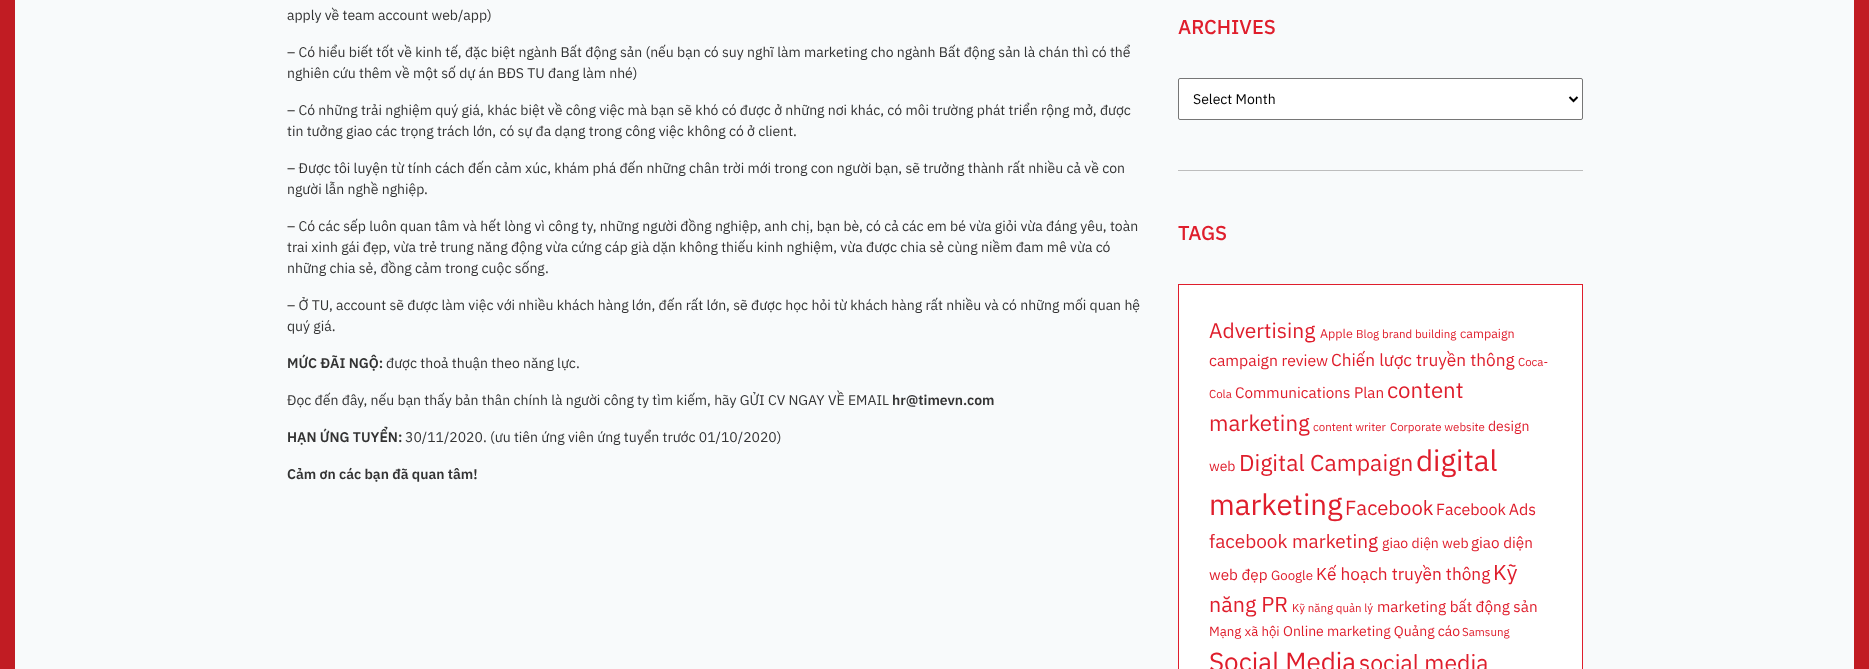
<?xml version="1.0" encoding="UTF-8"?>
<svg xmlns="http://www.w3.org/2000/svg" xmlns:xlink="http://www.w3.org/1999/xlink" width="1869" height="669">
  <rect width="100%" height="100%" fill="#f8fafb" />
  <rect x="7.5" y="-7.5" width="1854" height="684" fill="none" stroke="#c11c23" stroke-width="15" />
  <rect x="1178.5" y="78.5" width="404" height="41" rx="1.5" fill="#ffffff" stroke="#767676" />
  <path d="M 1569.5 97 l 4 4 l 4 -4" fill="none" stroke="#000000" stroke-width="2" />
  <rect x="1178" y="170" width="405" height="1" fill="#bdbdbd" />
  <rect x="1178.5" y="284.5" width="404" height="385" fill="#ffffff" stroke="#df1e2c" />
  <text x="287" y="20" style="font-family: IBM Plex Sans; font-size: 14px; fill: #333333">apply về team account web/app)</text>
  <text x="287" y="57" style="font-family: IBM Plex Sans; font-size: 14px; fill: #333333">– Có hiểu biết tốt về kinh tế, đặc biệt ngành Bất động sản (nếu bạn có suy nghĩ làm marketing cho ngành Bất động sản là chán thì có thể</text>
  <text x="287" y="78" style="font-family: IBM Plex Sans; font-size: 14px; fill: #333333">nghiên cứu thêm về một số dự án BĐS TU đang làm nhé)</text>
  <text x="287" y="115" style="font-family: IBM Plex Sans; font-size: 14px; fill: #333333">– Có những trải nghiệm quý giá, khác biệt về công việc mà bạn sẽ khó có được ở những nơi khác, có môi trường phát triển rộng mở, được</text>
  <text x="287" y="136" style="font-family: IBM Plex Sans; font-size: 14px; fill: #333333">tin tưởng giao các trọng trách lớn, có sự đa dạng trong công việc không có ở client.</text>
  <text x="287" y="173" style="font-family: IBM Plex Sans; font-size: 14px; fill: #333333">– Được tôi luyện từ tính cách đến cảm xúc, khám phá đến những chân trời mới trong con người bạn, sẽ trưởng thành rất nhiều cả về con</text>
  <text x="287" y="194" style="font-family: IBM Plex Sans; font-size: 14px; fill: #333333">người lẫn nghề nghiệp.</text>
  <text x="287" y="231" style="font-family: IBM Plex Sans; font-size: 14px; fill: #333333">– Có các sếp luôn quan tâm và hết lòng vì công ty, những người đồng nghiệp, anh chị, bạn bè, có cả các em bé vừa giỏi vừa đáng yêu, toàn</text>
  <text x="287" y="252" style="font-family: IBM Plex Sans; font-size: 14px; fill: #333333">trai xinh gái đẹp, vừa trẻ trung năng động vừa cứng cáp già dặn không thiếu kinh nghiệm, vừa được chia sẻ cùng niềm đam mê vừa có</text>
  <text x="287" y="273" style="font-family: IBM Plex Sans; font-size: 14px; fill: #333333">những chia sẻ, đồng cảm trong cuộc sống.</text>
  <text x="287" y="310" style="font-family: IBM Plex Sans; font-size: 14px; fill: #333333">– Ở TU, account sẽ được làm việc với nhiều khách hàng lớn, đến rất lớn, sẽ được học hỏi từ khách hàng rất nhiều và có những mối quan hệ</text>
  <text x="287" y="331" style="font-family: IBM Plex Sans; font-size: 14px; fill: #333333">quý giá.</text>
  <text x="287" y="368" style="font-family: IBM Plex Sans; font-size: 14px; font-weight: 600; fill: #333333">MỨC ĐÃI NGỘ:</text>
  <text x="386" y="368" style="font-family: IBM Plex Sans; font-size: 14px; fill: #333333">được thoả thuận theo năng lực.</text>
  <text x="287" y="405" style="font-family: IBM Plex Sans; font-size: 14px; fill: #333333">Đọc đến đây, nếu bạn thấy bản thân chính là người công ty tìm kiếm, hãy GỬI CV NGAY VỀ EMAIL</text>
  <text x="892" y="405" style="font-family: IBM Plex Sans; font-size: 14px; font-weight: 600; fill: #333333">hr@timevn.com</text>
  <text x="287" y="442" style="font-family: IBM Plex Sans; font-size: 14px; font-weight: 600; fill: #333333">HẠN ỨNG TUYỂN:</text>
  <text x="405" y="442" style="font-family: IBM Plex Sans; font-size: 14px; fill: #333333">30/11/2020. (ưu tiên ứng viên ứng tuyển trước 01/10/2020)</text>
  <text x="287" y="479" style="font-family: IBM Plex Sans; font-size: 14px; font-weight: 600; fill: #333333">Cảm ơn các bạn đã quan tâm!</text>
  <text x="1178" y="34" style="font-family: IBM Plex Sans; font-size: 20px; font-weight: 500; fill: #df1e2c">ARCHIVES</text>
  <text x="1193" y="104" style="font-family: IBM Plex Sans; font-size: 14px; fill: #000000">Select Month</text>
  <text x="1178" y="240" style="font-family: IBM Plex Sans; font-size: 20px; font-weight: 500; fill: #df1e2c">TAGS</text>
  <text x="1209" y="338" style="font-family: IBM Plex Sans; font-size: 21px; fill: #df1e2c">Advertising</text>
  <text x="1320" y="338" style="font-family: IBM Plex Sans; font-size: 12.5px; fill: #df1e2c">Apple</text>
  <text x="1356" y="338" style="font-family: IBM Plex Sans; font-size: 11.5px; fill: #df1e2c">Blog</text>
  <text x="1382" y="338" style="font-family: IBM Plex Sans; font-size: 11.5px; fill: #df1e2c">brand building</text>
  <text x="1460" y="338" style="font-family: IBM Plex Sans; font-size: 12.5px; fill: #df1e2c">campaign</text>
  <text x="1209" y="366" style="font-family: IBM Plex Sans; font-size: 15.75px; fill: #df1e2c">campaign review</text>
  <text x="1331" y="366" style="font-family: IBM Plex Sans; font-size: 17.25px; fill: #df1e2c">Chiến lược truyền thông</text>
  <text x="1518" y="366" style="font-family: IBM Plex Sans; font-size: 11.5px; fill: #df1e2c">Coca-</text>
  <text x="1209" y="398" style="font-family: IBM Plex Sans; font-size: 11.5px; fill: #df1e2c">Cola</text>
  <text x="1235" y="398" style="font-family: IBM Plex Sans; font-size: 15.25px; fill: #df1e2c">Communications Plan</text>
  <text x="1387" y="398" style="font-family: IBM Plex Sans; font-size: 22.25px; fill: #df1e2c">content</text>
  <text x="1209" y="431" style="font-family: IBM Plex Sans; font-size: 22.25px; fill: #df1e2c">marketing</text>
  <text x="1313" y="431" style="font-family: IBM Plex Sans; font-size: 11.5px; fill: #df1e2c">content writer</text>
  <text x="1390" y="431" style="font-family: IBM Plex Sans; font-size: 11.5px; fill: #df1e2c">Corporate website</text>
  <text x="1488" y="431" style="font-family: IBM Plex Sans; font-size: 14px; fill: #df1e2c">design</text>
  <text x="1209" y="471" style="font-family: IBM Plex Sans; font-size: 14px; fill: #df1e2c">web</text>
  <text x="1239" y="471" style="font-family: IBM Plex Sans; font-size: 23px; fill: #df1e2c">Digital Campaign</text>
  <text x="1416" y="471" style="font-family: IBM Plex Sans; font-size: 29.5px; fill: #df1e2c">digital</text>
  <text x="1209" y="515" style="font-family: IBM Plex Sans; font-size: 29.5px; fill: #df1e2c">marketing</text>
  <text x="1345" y="515" style="font-family: IBM Plex Sans; font-size: 20.25px; fill: #df1e2c">Facebook</text>
  <text x="1436" y="515" word-spacing="-1" style="font-family: IBM Plex Sans; font-size: 16px; fill: #df1e2c">Facebook Ads</text>
  <text x="1209" y="548" style="font-family: IBM Plex Sans; font-size: 19px; fill: #df1e2c">facebook marketing</text>
  <text x="1382" y="548" style="font-family: IBM Plex Sans; font-size: 14px; fill: #df1e2c">giao diện web</text>
  <text x="1471" y="548" style="font-family: IBM Plex Sans; font-size: 15.25px; fill: #df1e2c">giao diện</text>
  <text x="1209" y="580" style="font-family: IBM Plex Sans; font-size: 15.25px; fill: #df1e2c">web đẹp</text>
  <text x="1271" y="580" style="font-family: IBM Plex Sans; font-size: 13.25px; fill: #df1e2c">Google</text>
  <text x="1316" y="580" style="font-family: IBM Plex Sans; font-size: 17.25px; fill: #df1e2c">Kế hoạch truyền thông</text>
  <text x="1493" y="580" style="font-family: IBM Plex Sans; font-size: 21.5px; fill: #df1e2c">Kỹ</text>
  <text x="1209" y="612" style="font-family: IBM Plex Sans; font-size: 21.5px; fill: #df1e2c">năng PR</text>
  <text x="1292" y="612" style="font-family: IBM Plex Sans; font-size: 11.5px; fill: #df1e2c">Kỹ năng quản lý</text>
  <text x="1377" y="612" style="font-family: IBM Plex Sans; font-size: 15.25px; fill: #df1e2c">marketing bất động sản</text>
  <text x="1209" y="636" style="font-family: IBM Plex Sans; font-size: 13.25px; fill: #df1e2c">Mạng xã hội</text>
  <text x="1283" y="636" style="font-family: IBM Plex Sans; font-size: 14px; fill: #df1e2c">Online marketing Quảng cáo</text>
  <text x="1462" y="636" style="font-family: IBM Plex Sans; font-size: 11.5px; fill: #df1e2c">Samsung</text>
  <text x="1209" y="671" style="font-family: IBM Plex Sans; font-size: 26px; fill: #df1e2c">Social Media</text>
  <text x="1359" y="671" style="font-family: IBM Plex Sans; font-size: 23px; fill: #df1e2c">social media</text>
</svg>
